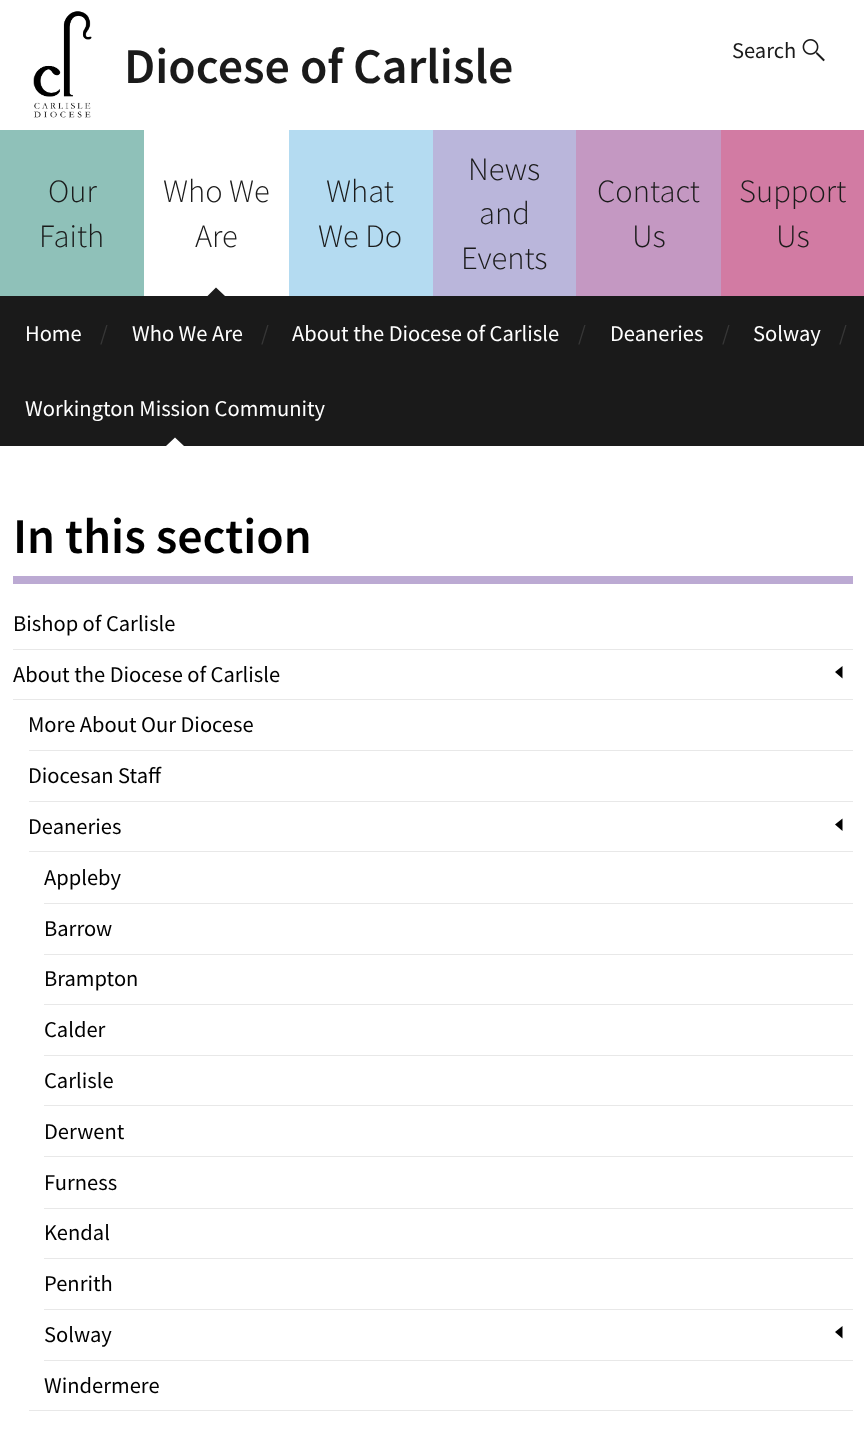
<?xml version="1.0" encoding="UTF-8"?>
<svg xmlns="http://www.w3.org/2000/svg" xmlns:xlink="http://www.w3.org/1999/xlink" width="864" height="1438">
  <rect width="100%" height="100%" fill="#ffffff" />
  <image x="33" y="11" width="59" height="107" xlink:href="image1.png" />
  <image x="802" y="39" width="23" height="23" xlink:href="image2.png" />
  <rect y="130" width="144" height="166" fill="#8fc1b9" />
  <path d="M 225 296 h -17.5 l 8.5 -8.5 z" fill="#1a1a1a" />
  <rect x="289" y="130" width="144" height="166" fill="#b4dbf1" />
  <rect x="433" y="130" width="143" height="166" fill="#bab6db" />
  <rect x="576" y="130" width="145" height="166" fill="#c498c2" />
  <rect x="721" y="130" width="143" height="166" fill="#d27ba3" />
  <rect y="296" width="864" height="150" fill="#1a1a1a" />
  <path d="M 184 446 h -18 l 9 -8.5 z" fill="#ffffff" />
  <rect x="13" y="576" width="840" height="8" fill="#bcaad3" />
  <rect x="13" y="649" width="840" height="1" fill="#e8e8e8" />
  <path d="M 842.5 666 l -7.5 6 l 7.5 6.5 z" fill="#000000" />
  <rect x="13" y="699" width="840" height="1" fill="#e8e8e8" />
  <rect x="29" y="750" width="824" height="1" fill="#e8e8e8" />
  <rect x="29" y="801" width="824" height="1" fill="#e8e8e8" />
  <rect x="29" y="1410" width="824" height="1" fill="#e8e8e8" />
  <path d="M 842.5 818.5 l -7.5 6 l 7.5 6.5 z" fill="#000000" />
  <rect x="29" y="851" width="824" height="1" fill="#e8e8e8" />
  <rect x="44" y="903" width="809" height="1" fill="#e8e8e8" />
  <rect x="44" y="954" width="809" height="1" fill="#e8e8e8" />
  <rect x="44" y="1004" width="809" height="1" fill="#e8e8e8" />
  <rect x="44" y="1055" width="809" height="1" fill="#e8e8e8" />
  <rect x="44" y="1105" width="809" height="1" fill="#e8e8e8" />
  <rect x="44" y="1156" width="809" height="1" fill="#e8e8e8" />
  <rect x="44" y="1208" width="809" height="1" fill="#e8e8e8" />
  <rect x="44" y="1258" width="809" height="1" fill="#e8e8e8" />
  <rect x="44" y="1309" width="809" height="1" fill="#e8e8e8" />
  <rect x="44" y="1360" width="809" height="1" fill="#e8e8e8" />
  <path d="M 842.5 1326 l -7.5 6 l 7.5 6.5 z" fill="#000000" />
  <text x="124" y="83" style="font-family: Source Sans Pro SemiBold; font-size: 50px; font-weight: 600; fill: #1a1a1a">Diocese of Carlisle</text>
  <text x="732" y="58" style="font-family: Source Sans Pro; font-size: 22.5px; fill: #1a1a1a">Search</text>
  <text x="48" y="202" style="font-family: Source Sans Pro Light; font-size: 32.5px; font-weight: 300; fill: #1a1a1a">Our</text>
  <text x="39" y="247" style="font-family: Source Sans Pro Light; font-size: 32.5px; font-weight: 300; fill: #1a1a1a">Faith</text>
  <text x="163" y="202" style="font-family: Source Sans Pro Light; font-size: 32.5px; font-weight: 300; fill: #1a1a1a">Who We</text>
  <text x="195" y="247" style="font-family: Source Sans Pro Light; font-size: 32.5px; font-weight: 300; fill: #1a1a1a">Are</text>
  <text x="326" y="202" style="font-family: Source Sans Pro Light; font-size: 32.5px; font-weight: 300; fill: #1a1a1a">What</text>
  <text x="318" y="247" style="font-family: Source Sans Pro Light; font-size: 32.5px; font-weight: 300; fill: #1a1a1a">We Do</text>
  <text x="468" y="180" style="font-family: Source Sans Pro Light; font-size: 32.5px; font-weight: 300; fill: #1a1a1a">News</text>
  <text x="479" y="224" style="font-family: Source Sans Pro Light; font-size: 32.5px; font-weight: 300; fill: #1a1a1a">and</text>
  <text x="461" y="269" style="font-family: Source Sans Pro Light; font-size: 32.5px; font-weight: 300; fill: #1a1a1a">Events</text>
  <text x="597" y="202" style="font-family: Source Sans Pro Light; font-size: 32.5px; font-weight: 300; fill: #1a1a1a">Contact</text>
  <text x="632" y="247" style="font-family: Source Sans Pro Light; font-size: 32.5px; font-weight: 300; fill: #1a1a1a">Us</text>
  <text x="739" y="202" style="font-family: Source Sans Pro Light; font-size: 32.5px; font-weight: 300; fill: #1a1a1a">Support</text>
  <text x="776" y="247" style="font-family: Source Sans Pro Light; font-size: 32.5px; font-weight: 300; fill: #1a1a1a">Us</text>
  <text x="25" y="341" style="font-family: Source Sans Pro; font-size: 22.5px; fill: #ffffff">Home</text>
  <text x="100" y="341" style="font-family: Source Sans Pro; font-size: 22.5px; fill: #373737">/</text>
  <text x="132" y="341" style="font-family: Source Sans Pro; font-size: 22.5px; fill: #ffffff">Who We Are</text>
  <text x="261" y="341" style="font-family: Source Sans Pro; font-size: 22.5px; fill: #373737">/</text>
  <text x="292" y="341" style="font-family: Source Sans Pro; font-size: 22.5px; fill: #ffffff">About the Diocese of Carlisle</text>
  <text x="578" y="341" style="font-family: Source Sans Pro; font-size: 22.5px; fill: #373737">/</text>
  <text x="610" y="341" style="font-family: Source Sans Pro; font-size: 22.5px; fill: #ffffff">Deaneries</text>
  <text x="722" y="341" style="font-family: Source Sans Pro; font-size: 22.5px; fill: #373737">/</text>
  <text x="753" y="341" style="font-family: Source Sans Pro; font-size: 22.5px; fill: #ffffff">Solway</text>
  <text x="839" y="341" style="font-family: Source Sans Pro; font-size: 22.5px; fill: #373737">/</text>
  <text x="25" y="416" style="font-family: Source Sans Pro; font-size: 22.5px; fill: #ffffff">Workington Mission Community</text>
  <text x="13" y="553" style="font-family: Source Sans Pro SemiBold; font-size: 50px; font-weight: 600; fill: #000000">In this section</text>
  <text x="13" y="631" style="font-family: Source Sans Pro; font-size: 22.5px; fill: #000000">Bishop of Carlisle</text>
  <text x="13" y="682" style="font-family: Source Sans Pro; font-size: 22.5px; fill: #000000">About the Diocese of Carlisle</text>
  <text x="28" y="732" style="font-family: Source Sans Pro; font-size: 22.5px; fill: #000000">More About Our Diocese</text>
  <text x="28" y="783" style="font-family: Source Sans Pro; font-size: 22.5px; fill: #000000">Diocesan Staff</text>
  <text x="28" y="834" style="font-family: Source Sans Pro; font-size: 22.5px; fill: #000000">Deaneries</text>
  <text x="44" y="885" style="font-family: Source Sans Pro; font-size: 22.5px; fill: #000000">Appleby</text>
  <text x="44" y="936" style="font-family: Source Sans Pro; font-size: 22.5px; fill: #000000">Barrow</text>
  <text x="44" y="986" style="font-family: Source Sans Pro; font-size: 22.5px; fill: #000000">Brampton</text>
  <text x="44" y="1037" style="font-family: Source Sans Pro; font-size: 22.5px; fill: #000000">Calder</text>
  <text x="44" y="1088" style="font-family: Source Sans Pro; font-size: 22.5px; fill: #000000">Carlisle</text>
  <text x="44" y="1139" style="font-family: Source Sans Pro; font-size: 22.5px; fill: #000000">Derwent</text>
  <text x="44" y="1190" style="font-family: Source Sans Pro; font-size: 22.5px; fill: #000000">Furness</text>
  <text x="44" y="1240" style="font-family: Source Sans Pro; font-size: 22.5px; fill: #000000">Kendal</text>
  <text x="44" y="1291" style="font-family: Source Sans Pro; font-size: 22.5px; fill: #000000">Penrith</text>
  <text x="44" y="1342" style="font-family: Source Sans Pro; font-size: 22.5px; fill: #000000">Solway</text>
  <text x="44" y="1393" style="font-family: Source Sans Pro; font-size: 22.5px; fill: #000000">Windermere</text>
</svg>
